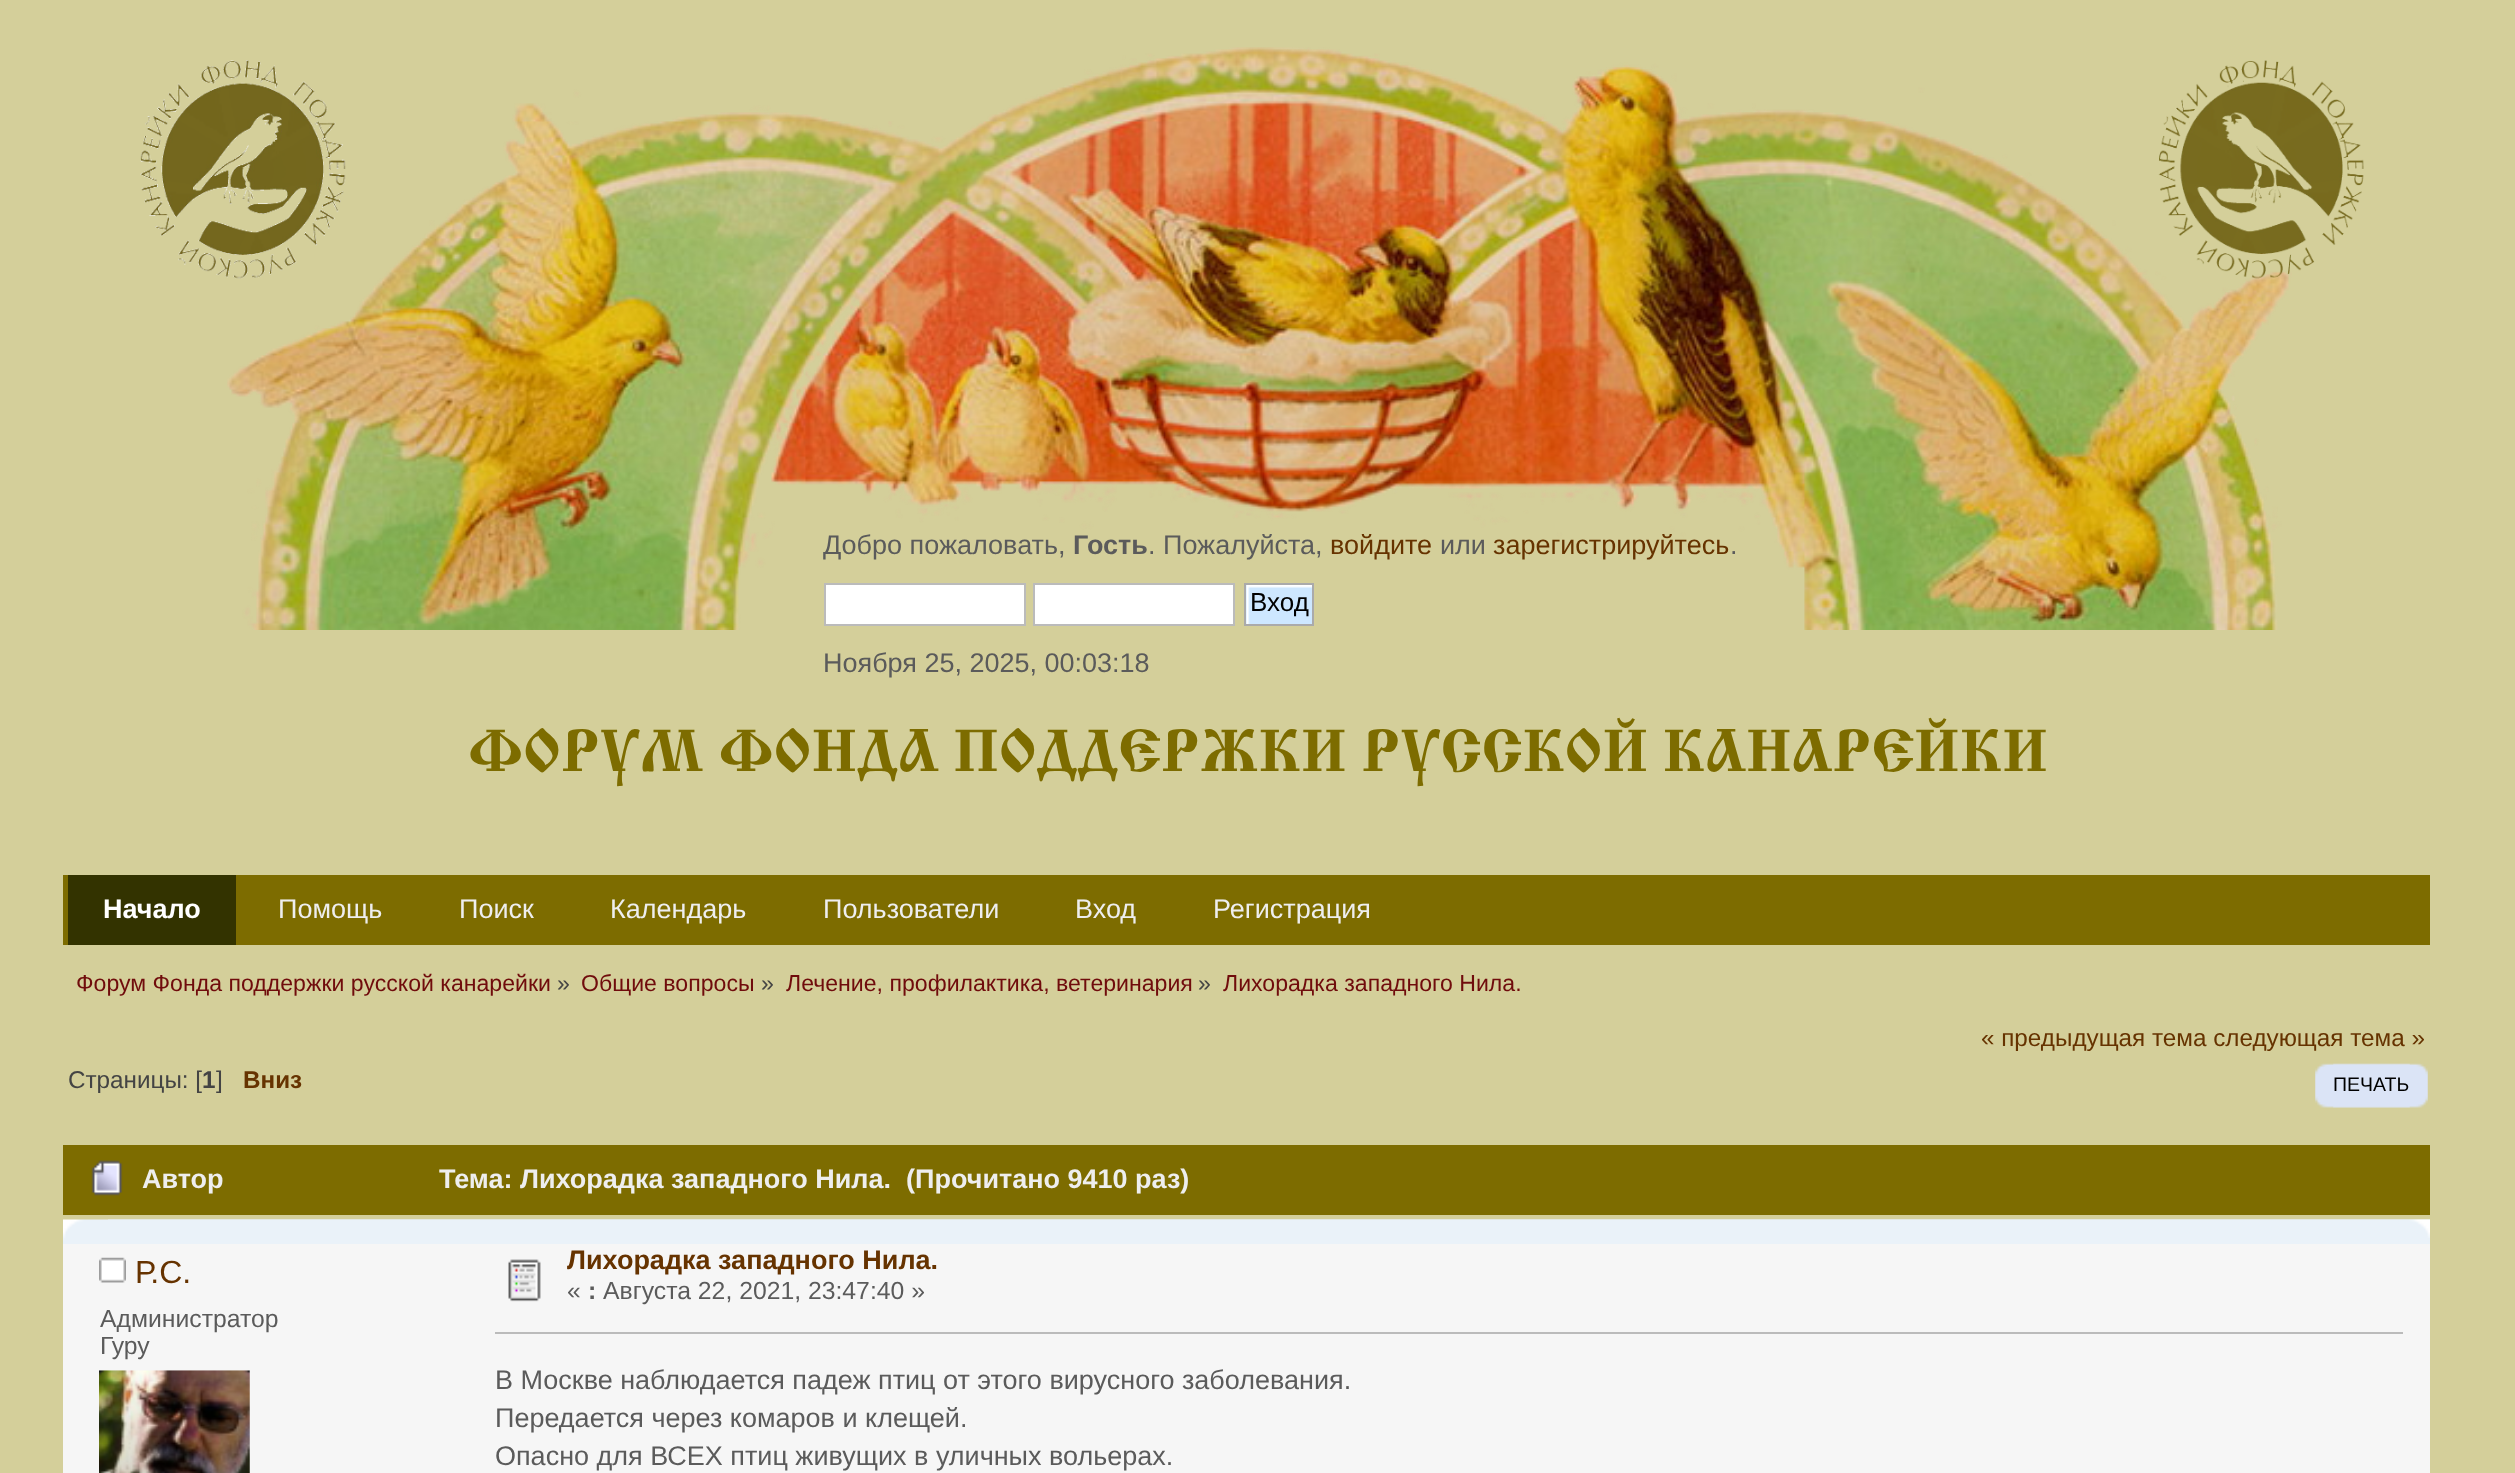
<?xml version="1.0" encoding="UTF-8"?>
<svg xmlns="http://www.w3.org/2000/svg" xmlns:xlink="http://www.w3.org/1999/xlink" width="2515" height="1473">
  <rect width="100%" height="100%" fill="#d4cf9a" />
  <image x="227" y="47" width="2065" height="583" xlink:href="image1.png" />
  <image x="140" y="60" width="206" height="219" xlink:href="image2.png" />
  <image x="2158" y="60" width="206" height="219" xlink:href="image3.png" />
  <rect x="825" y="584" width="200" height="41" fill="#ffffff" stroke="#bbbbbb" stroke-width="2" />
  <rect x="1034" y="584" width="200" height="41" fill="#ffffff" stroke="#bbbbbb" stroke-width="2" />
  <rect x="1246" y="585" width="1" height="39" fill="#cde7ff" />
  <image x="1246" y="585" width="66" height="39" xlink:href="image4.png" />
  <rect x="1245" y="584" width="68" height="41" fill="none" stroke="#aaaaaa" stroke-width="2" />
  <rect x="63" y="875" width="2367" height="70" fill="#7d6c00" />
  <rect x="68" y="875" width="168" height="70" fill="#333300" />
  <image x="2315" y="1063" width="95" height="45" xlink:href="image5.png" />
  <image x="2333" y="1063" width="95" height="45" xlink:href="image6.png" />
  <rect x="63" y="1145" width="2367" height="70" fill="#7d6c00" />
  <image x="91" y="1160" width="32" height="36" xlink:href="image7.png" />
  <rect x="63" y="1244" width="2367" height="229" fill="#f6f6f6" />
  <image x="63" y="1219" width="2367" height="25" xlink:href="image8.png" />
  <image x="108" y="1219" width="2322" height="19" xlink:href="image9.png" />
  <image x="99" y="1257" width="27" height="26" xlink:href="image10.png" />
  <image x="99" y="1370" width="151" height="103" xlink:href="image11.png" />
  <image x="508" y="1259" width="33" height="43" xlink:href="image12.png" />
  <rect x="495" y="1332" width="1908" height="2" fill="#bbbbbb" />
  <text x="823" y="554" style="font-family: Liberation Sans; font-size: 27px; fill: #5b5b5b">Добро пожаловать,</text>
  <text x="1073" y="554" style="font-family: Liberation Sans; font-size: 27px; font-weight: bold; fill: #5b5b5b">Гость</text>
  <text x="1148" y="554" style="font-family: Liberation Sans; font-size: 27px; fill: #5b5b5b">. Пожалуйста,</text>
  <text x="1330" y="554" style="font-family: Liberation Sans; font-size: 27px; fill: #663300">войдите</text>
  <text x="1440" y="554" style="font-family: Liberation Sans; font-size: 27px; fill: #5b5b5b">или</text>
  <text x="1493" y="554" style="font-family: Liberation Sans; font-size: 27px; fill: #663300">зарегистрируйтесь</text>
  <text x="1730" y="554" style="font-family: Liberation Sans; font-size: 27px; fill: #5b5b5b">.</text>
  <text x="1250" y="611" style="font-family: Liberation Sans; font-size: 26px; fill: #000000">Вход</text>
  <text x="823" y="672" style="font-family: Liberation Sans; font-size: 27px; fill: #5b5b5b">Ноября 25, 2025, 00:03:18</text>
  <text x="468" y="771" style="font-family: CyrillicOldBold; font-size: 62.1px; font-weight: bold; fill: #7d6c00">ФОРУМ ФОНДА ПОДДЕРЖКИ РУССКОЙ КАНАРЕЙКИ</text>
  <text x="103" y="918" style="font-family: Liberation Sans; font-size: 27px; font-weight: bold; fill: #ffffff">Начало</text>
  <text x="278" y="918" style="font-family: Liberation Sans; font-size: 27px; fill: #eeeeee">Помощь</text>
  <text x="459" y="918" style="font-family: Liberation Sans; font-size: 27px; fill: #eeeeee">Поиск</text>
  <text x="610" y="918" style="font-family: Liberation Sans; font-size: 27px; fill: #eeeeee">Календарь</text>
  <text x="823" y="918" style="font-family: Liberation Sans; font-size: 27px; fill: #eeeeee">Пользователи</text>
  <text x="1075" y="918" style="font-family: Liberation Sans; font-size: 27px; fill: #eeeeee">Вход</text>
  <text x="1213" y="918" style="font-family: Liberation Sans; font-size: 27px; fill: #eeeeee">Регистрация</text>
  <text x="76" y="991" style="font-family: Liberation Sans; font-size: 23.1px; fill: #700c0c">Форум Фонда поддержки русской канарейки</text>
  <text x="557" y="991" style="font-family: Liberation Sans; font-size: 23.1px; fill: #444444">»</text>
  <text x="581" y="991" style="font-family: Liberation Sans; font-size: 23.1px; fill: #700c0c">Общие вопросы</text>
  <text x="761" y="991" style="font-family: Liberation Sans; font-size: 23.1px; fill: #444444">»</text>
  <text x="786" y="991" style="font-family: Liberation Sans; font-size: 23.1px; fill: #700c0c">Лечение, профилактика, ветеринария</text>
  <text x="1198" y="991" style="font-family: Liberation Sans; font-size: 23.1px; fill: #444444">»</text>
  <text x="1223" y="991" style="font-family: Liberation Sans; font-size: 23.1px; fill: #700c0c">Лихорадка западного Нила.</text>
  <text x="1981" y="1046" style="font-family: Liberation Sans; font-size: 24.25px; fill: #663300">« предыдущая тема следующая тема »</text>
  <text x="68" y="1088" style="font-family: Liberation Sans; font-size: 24.25px; fill: #444444">Страницы: [</text>
  <text x="202" y="1088" style="font-family: Liberation Sans; font-size: 24.25px; font-weight: bold; fill: #444444">1</text>
  <text x="216" y="1088" style="font-family: Liberation Sans; font-size: 24.25px; fill: #444444">]</text>
  <text x="243" y="1088" style="font-family: Liberation Sans; font-size: 24.25px; font-weight: bold; fill: #663300">Вниз</text>
  <text x="2333" y="1091" style="font-family: Liberation Sans; font-size: 19.5px; fill: #000000">ПЕЧАТЬ</text>
  <text x="142" y="1188" style="font-family: Liberation Sans; font-size: 27px; font-weight: bold; fill: #eeeeee">Автор</text>
  <text x="439" y="1188" style="font-family: Liberation Sans; font-size: 27px; font-weight: bold; fill: #eeeeee" xml:space="preserve">Тема: Лихорадка западного Нила.  (Прочитано 9410 раз)</text>
  <text x="135" y="1283" style="font-family: Liberation Sans; font-size: 32px; fill: #663300">Р.С.</text>
  <text x="100" y="1327" style="font-family: Liberation Sans; font-size: 24.75px; fill: #5b5b5b">Администратор</text>
  <text x="100" y="1354" style="font-family: Liberation Sans; font-size: 24.75px; fill: #5b5b5b">Гуру</text>
  <text x="567" y="1269" style="font-family: Liberation Sans; font-size: 27px; font-weight: bold; fill: #663300">Лихорадка западного Нила.</text>
  <text x="567" y="1299" style="font-family: Liberation Sans; font-size: 24.75px; fill: #5b5b5b">«</text>
  <text x="588" y="1299" style="font-family: Liberation Sans; font-size: 24.75px; font-weight: bold; fill: #5b5b5b">:</text>
  <text x="603" y="1299" style="font-family: Liberation Sans; font-size: 24.75px; fill: #5b5b5b">Августа 22, 2021, 23:47:40 »</text>
  <text x="495" y="1389" style="font-family: Liberation Sans; font-size: 27px; fill: #5b5b5b">В Москве наблюдается падеж птиц от этого вирусного заболевания.</text>
  <text x="495" y="1427" style="font-family: Liberation Sans; font-size: 27px; fill: #5b5b5b">Передается через комаров и клещей.</text>
  <text x="495" y="1465" style="font-family: Liberation Sans; font-size: 27px; fill: #5b5b5b">Опасно для ВСЕХ птиц живущих в уличных вольерах.</text>
</svg>
